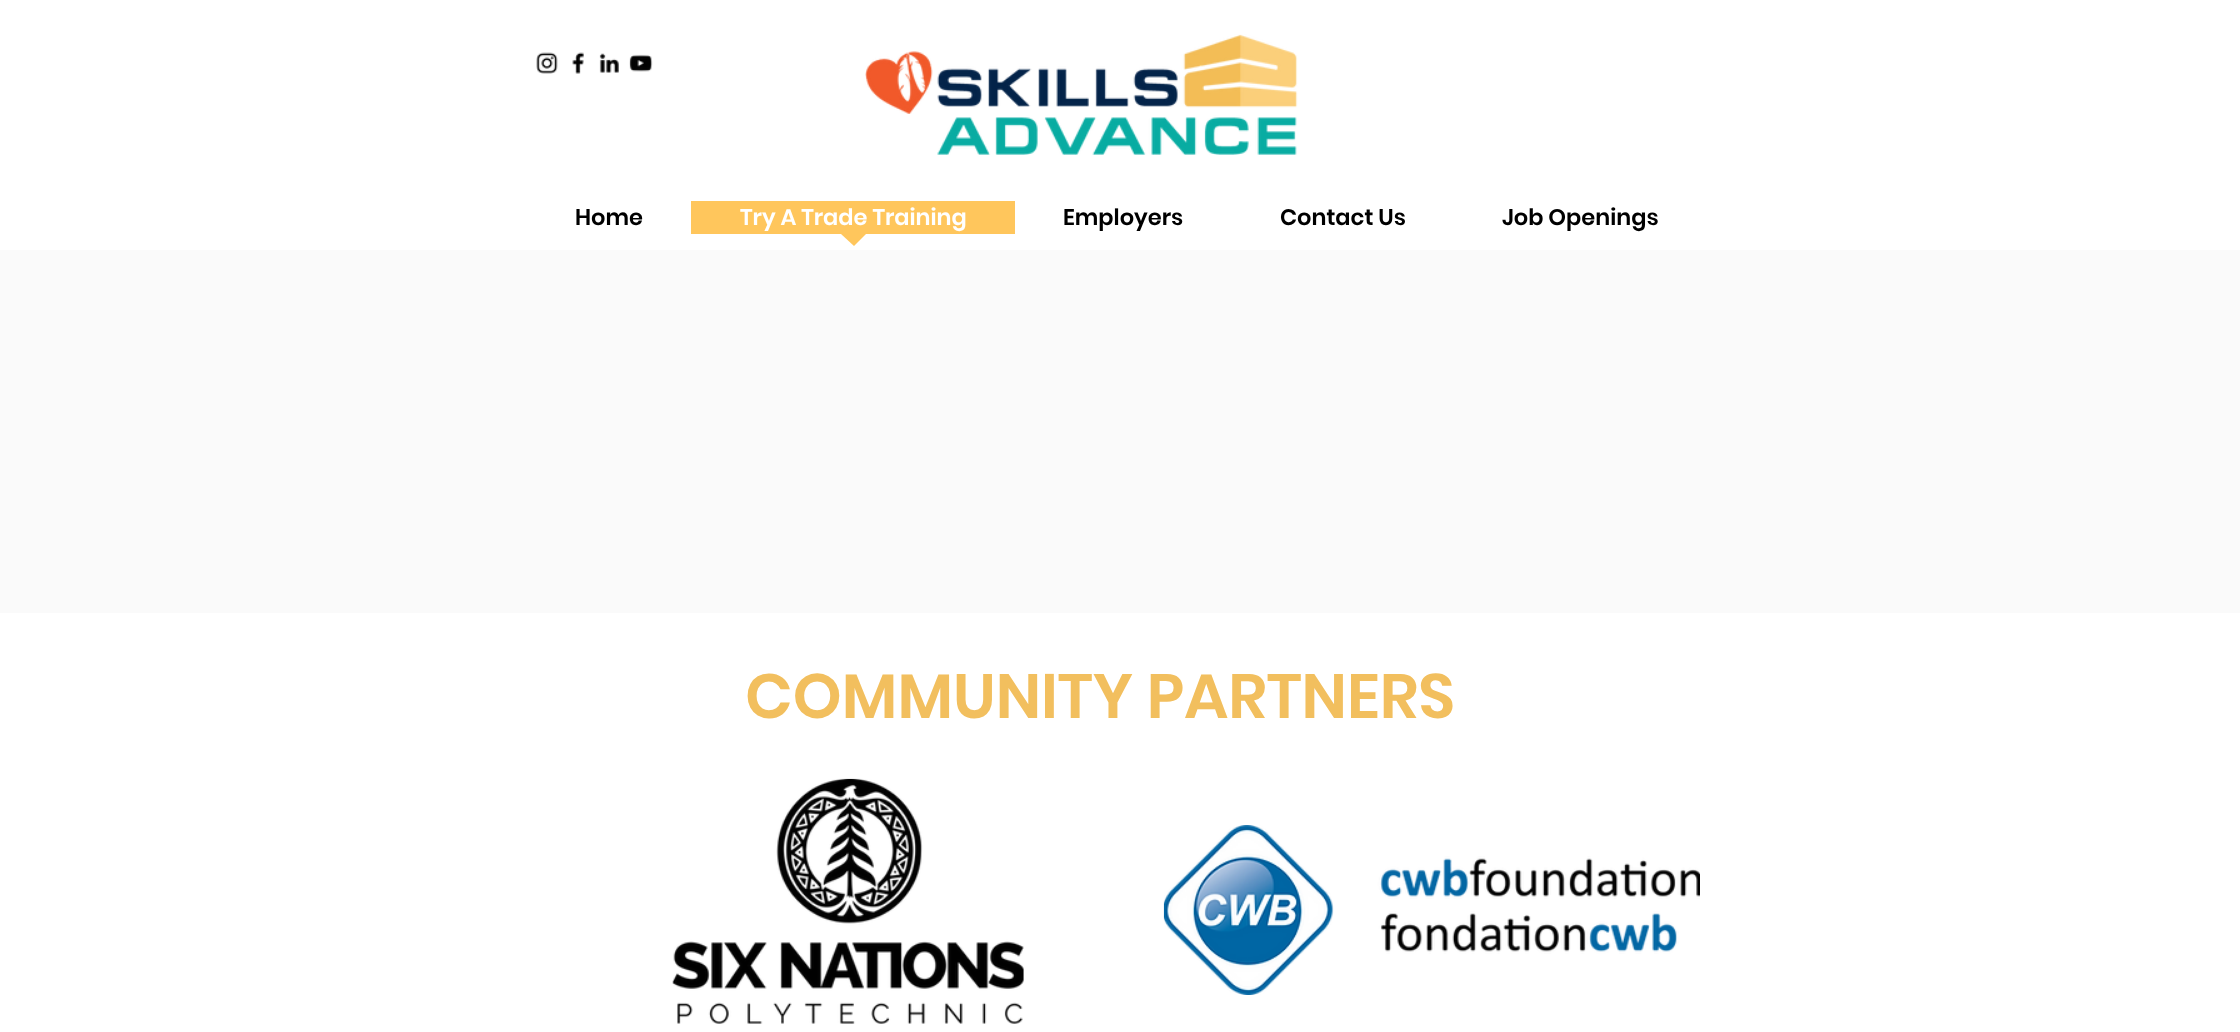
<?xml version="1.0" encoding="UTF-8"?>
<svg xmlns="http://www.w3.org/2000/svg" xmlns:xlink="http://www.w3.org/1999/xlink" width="2240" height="1032">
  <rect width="100%" height="100%" fill="#ffffff" />
  <image x="536" y="52" width="22" height="22" xlink:href="image1.png" />
  <image x="572" y="52" width="12" height="22" xlink:href="image2.png" />
  <image x="599" y="53" width="20" height="20" xlink:href="image3.png" />
  <image x="629" y="54" width="24" height="18" xlink:href="image4.png" />
  <image x="865" y="51" width="68" height="63" xlink:href="image5.png" />
  <image x="937" y="34" width="361" height="121" xlink:href="image6.png" />
  <rect x="691" y="201" width="324" height="33" fill="#ffc65c" />
  <path d="M 841 234 h 25 l -12 12 z" fill="#ffc65c" />
  <rect y="250" width="2240" height="363" fill="#fafafa" />
  <image x="672" y="778" width="352" height="246" xlink:href="image7.png" />
  <image x="1163" y="825" width="537" height="170" xlink:href="image8.png" />
  <text x="575" y="225" style="font-family: Poppins; font-size: 22.5px; font-weight: 600; fill: #000000">Home</text>
  <text x="740" y="225" style="font-family: Poppins; font-size: 22.5px; font-weight: 600; fill: #ffffff">Try A Trade Training</text>
  <text x="1063" y="225" style="font-family: Poppins; font-size: 22.5px; font-weight: 600; fill: #000000">Employers</text>
  <text x="1280" y="225" style="font-family: Poppins; font-size: 22.5px; font-weight: 600; fill: #000000">Contact Us</text>
  <text x="1502" y="225" style="font-family: Poppins; font-size: 22.5px; font-weight: 600; fill: #000000">Job Openings</text>
  <text x="745" y="718" style="font-family: Poppins; font-size: 62.5px; font-weight: 600; fill: #f2bf5e">COMMUNITY PARTNERS</text>
</svg>
